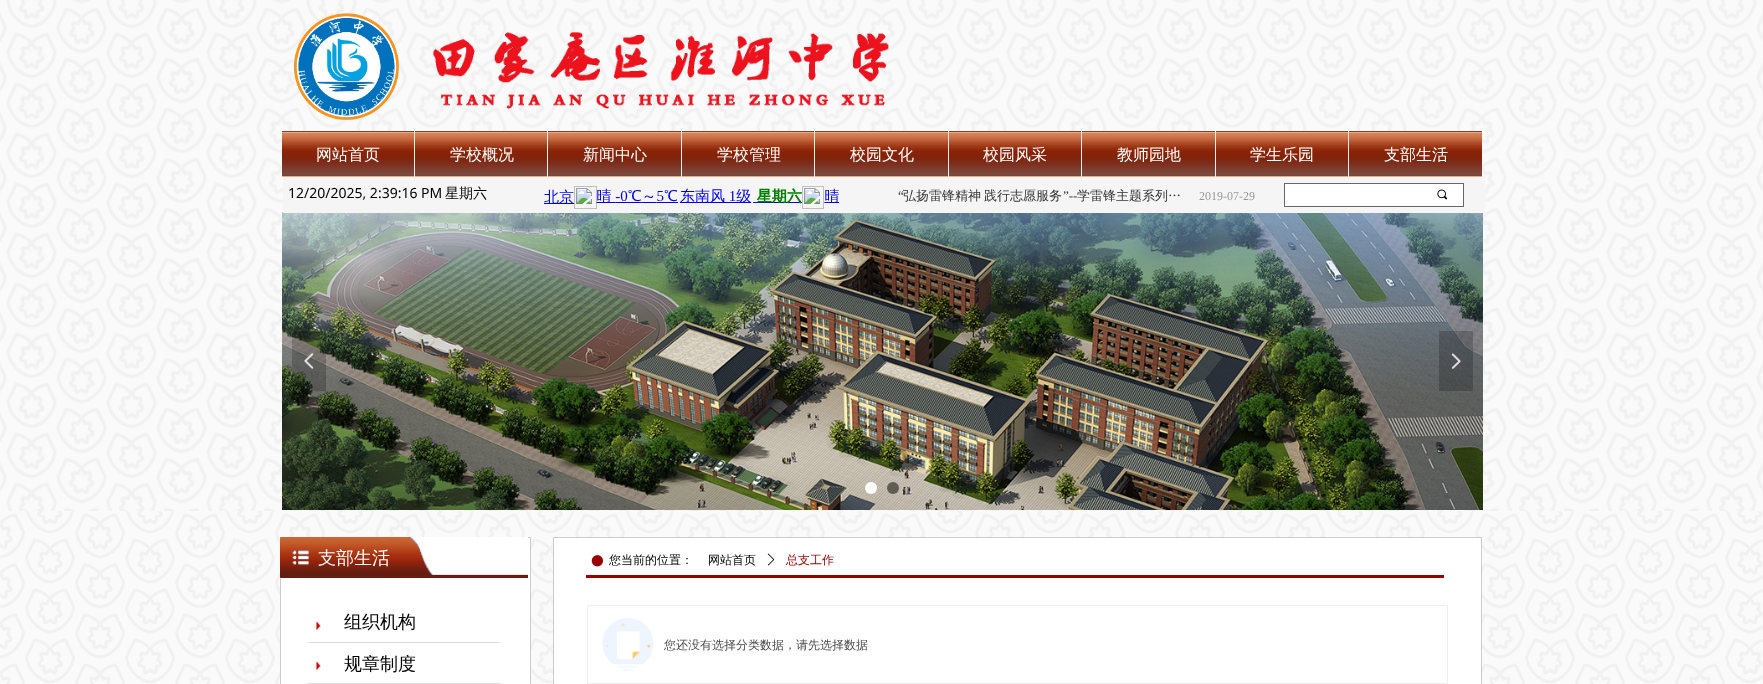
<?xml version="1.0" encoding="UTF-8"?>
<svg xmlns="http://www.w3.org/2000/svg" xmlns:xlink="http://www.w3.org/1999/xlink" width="1763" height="684">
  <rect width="100%" height="100%" fill="#ffffff" />
  <image x="0" y="0" width="1763" height="511" xlink:href="image1.png" />
  <image x="293" y="13" width="106" height="107" xlink:href="image2.png" />
  <image x="433" y="32" width="456" height="77" xlink:href="image3.png" />
  <image x="282" y="212" width="1201" height="298" xlink:href="image8.png" />
  <rect x="283" y="176" width="1202" height="37" fill="#f5f5f5" />
  <image x="282" y="131" width="132" height="46" xlink:href="image4.png" />
  <image x="415" y="131" width="132" height="46" xlink:href="image4.png" />
  <rect x="414" y="131" width="1" height="46" fill="#eeeeee" />
  <image x="548" y="131" width="133" height="46" xlink:href="image5.png" />
  <rect x="547" y="131" width="1" height="46" fill="#eeeeee" />
  <image x="682" y="131" width="132" height="46" xlink:href="image4.png" />
  <rect x="681" y="131" width="1" height="46" fill="#eeeeee" />
  <image x="815" y="131" width="133" height="46" xlink:href="image5.png" />
  <rect x="814" y="131" width="1" height="46" fill="#eeeeee" />
  <image x="949" y="131" width="132" height="46" xlink:href="image4.png" />
  <rect x="948" y="131" width="1" height="46" fill="#eeeeee" />
  <image x="1082" y="131" width="133" height="46" xlink:href="image5.png" />
  <rect x="1081" y="131" width="1" height="46" fill="#eeeeee" />
  <image x="1216" y="131" width="132" height="46" xlink:href="image4.png" />
  <rect x="1215" y="131" width="1" height="46" fill="#eeeeee" />
  <image x="1349" y="131" width="133" height="46" xlink:href="image5.png" />
  <rect x="1348" y="131" width="1" height="46" fill="#eeeeee" />
  <image x="544" y="186" width="295" height="23" xlink:href="image6.png" />
  <rect x="1284.5" y="183.5" width="179" height="23" fill="none" stroke="#666666" />
  <rect x="1285" y="184" width="178" height="22" fill="#ffffff" />
  <image x="1437" y="189" width="11" height="11" xlink:href="image7.png" />
  <rect x="292" y="331" width="34" height="60" fill="#000000" fill-opacity="0.2" />
  <image x="304" y="353" width="10" height="16" xlink:href="image9.png" />
  <rect x="1439" y="331" width="34" height="60" fill="#000000" fill-opacity="0.2" />
  <image x="1451" y="353" width="10" height="16" xlink:href="image10.png" />
  <circle cx="871" cy="488" r="6" fill="#ffffff" />
  <circle cx="893" cy="488" r="6" fill="#000000" fill-opacity="0.5" />
  <image x="0" y="511" width="1763" height="173" xlink:href="image11.png" />
  <rect x="280.5" y="537.5" width="250" height="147" fill="#ffffff" stroke="#cccccc" />
  <image x="280" y="537" width="248" height="41" xlink:href="image12.png" />
  <image x="316" y="621" width="5" height="10" xlink:href="image13.png" />
  <rect x="308" y="642" width="192" height="1" fill="#dddddd" />
  <image x="316" y="661" width="5" height="10" xlink:href="image13.png" />
  <rect x="308" y="683" width="192" height="1" fill="#dddddd" />
  <rect x="553.5" y="537.5" width="928" height="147" fill="#ffffff" stroke="#cccccc" />
  <image x="591" y="555" width="12" height="12" xlink:href="image14.png" />
  <image x="767" y="553" width="8" height="13" xlink:href="image15.png" />
  <rect x="586" y="575" width="858" height="3" fill="#990000" />
  <rect x="587.5" y="605.5" width="860" height="78" fill="none" stroke="#eeeeee" />
  <image x="602" y="618" width="52" height="53" xlink:href="image16.png" />
  <text x="316" y="160" style="font-family: WenQuanYi Zen Hei; font-size: 16px; font-weight: 500; fill: #ffffff">网站首页</text>
  <text x="450" y="160" style="font-family: WenQuanYi Zen Hei; font-size: 16px; font-weight: 500; fill: #ffffff">学校概况</text>
  <text x="583" y="160" style="font-family: WenQuanYi Zen Hei; font-size: 16px; font-weight: 500; fill: #ffffff">新闻中心</text>
  <text x="717" y="160" style="font-family: WenQuanYi Zen Hei; font-size: 16px; font-weight: 500; fill: #ffffff">学校管理</text>
  <text x="850" y="160" style="font-family: WenQuanYi Zen Hei; font-size: 16px; font-weight: 500; fill: #ffffff">校园文化</text>
  <text x="983" y="160" style="font-family: WenQuanYi Zen Hei; font-size: 16px; font-weight: 500; fill: #ffffff">校园风采</text>
  <text x="1117" y="160" style="font-family: WenQuanYi Zen Hei; font-size: 16px; font-weight: 500; fill: #ffffff">教师园地</text>
  <text x="1250" y="160" style="font-family: WenQuanYi Zen Hei; font-size: 16px; font-weight: 500; fill: #ffffff">学生乐园</text>
  <text x="1384" y="160" style="font-family: WenQuanYi Zen Hei; font-size: 16px; font-weight: 500; fill: #ffffff">支部生活</text>
  <text x="288" y="198" style="font-family: Noto Sans; font-size: 14px; fill: #000000">12/20/2025, 2:39:16 PM</text>
  <text x="445" y="198" style="font-family: WenQuanYi Zen Hei; font-size: 14px; font-weight: 500; fill: #000000">星期六</text>
  <text x="898" y="200" style="font-family: Liberation Serif; font-size: 13px; fill: #333333">“</text>
  <text x="903" y="200" word-spacing="-1" style="font-family: WenQuanYi Zen Hei; font-size: 13px; font-weight: 500; fill: #333333">弘扬雷锋精神 践行志愿服务</text>
  <text x="1063" y="200" style="font-family: Liberation Serif; font-size: 13px; fill: #333333">”--</text>
  <text x="1077" y="200" style="font-family: WenQuanYi Zen Hei; font-size: 13px; font-weight: 500; fill: #333333">学雷锋主题系列…</text>
  <text x="1199" y="200" style="font-family: Liberation Serif; font-size: 12px; fill: #999999">2019-07-29</text>
  <text x="318" y="564" style="font-family: WenQuanYi Zen Hei; font-size: 18px; font-weight: 500; fill: #ffffff">支部生活</text>
  <text x="344" y="628" style="font-family: WenQuanYi Zen Hei; font-size: 18px; font-weight: 500; fill: #000000">组织机构</text>
  <text x="344" y="670" style="font-family: WenQuanYi Zen Hei; font-size: 18px; font-weight: 500; fill: #000000">规章制度</text>
  <text x="609" y="564" style="font-family: WenQuanYi Zen Hei; font-size: 12px; font-weight: 500; fill: #000000">您当前的位置：</text>
  <text x="708" y="564" style="font-family: WenQuanYi Zen Hei; font-size: 12px; font-weight: 500; fill: #000000">网站首页</text>
  <text x="786" y="564" style="font-family: WenQuanYi Zen Hei; font-size: 12px; font-weight: 500; fill: #990000">总支工作</text>
  <text x="664" y="649" style="font-family: WenQuanYi Zen Hei; font-size: 12px; font-weight: 500; fill: #4a4a4a">您还没有选择分类数据，请先选择数据</text>
</svg>
